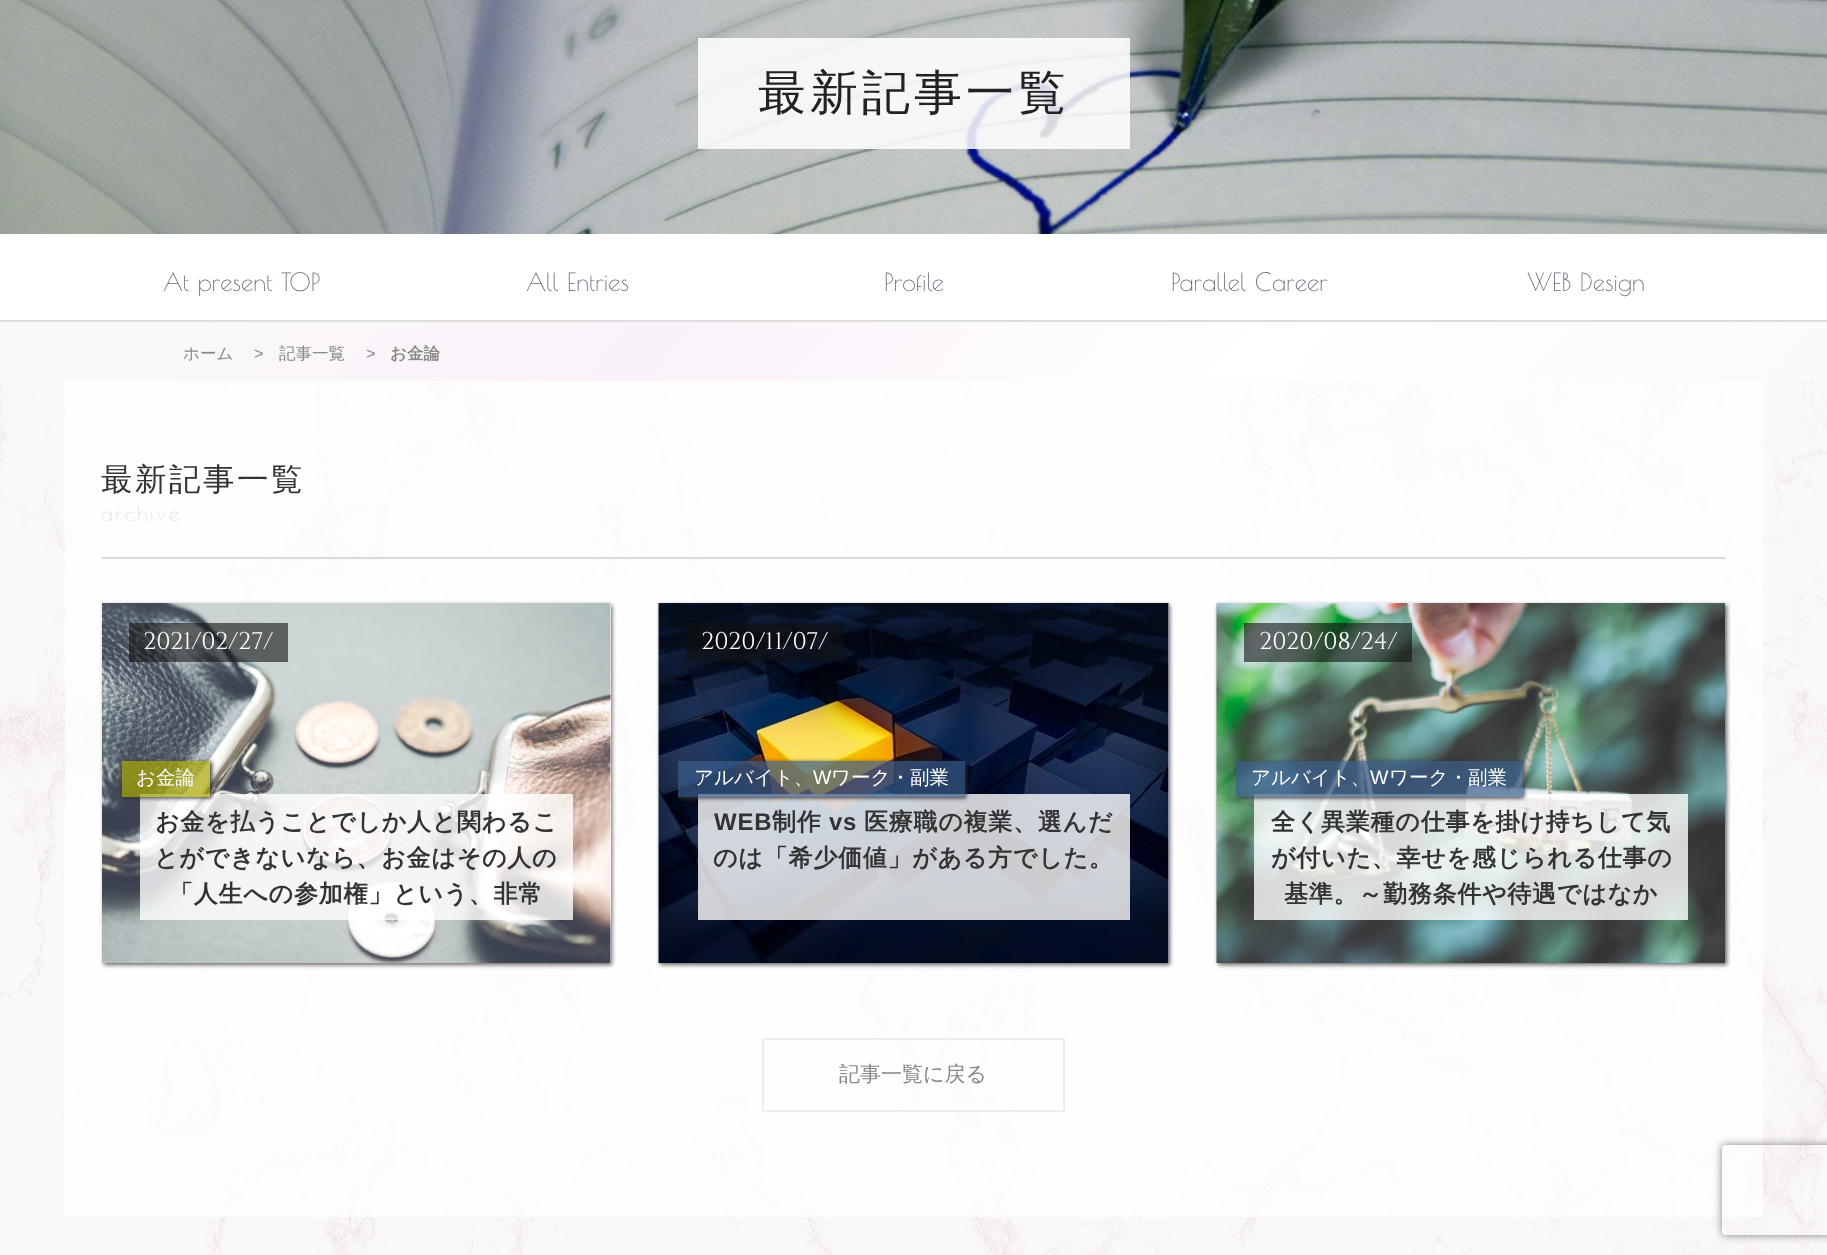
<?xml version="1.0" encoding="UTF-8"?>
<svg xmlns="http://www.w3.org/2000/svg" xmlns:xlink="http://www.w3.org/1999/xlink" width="1827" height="1255">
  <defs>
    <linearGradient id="g1" gradientUnits="userSpaceOnUse" x1="363" y1="-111" x2="1464" y2="813"><stop offset="0" stop-color="#fafafa" /><stop offset="0.36" stop-color="#faf2fa" /><stop offset="0.68" stop-color="#ffffff" /><stop offset="1" stop-color="#fafafa" /></linearGradient>
    <clipPath id="clip1"><path d="M 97 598 h 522 v 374 h -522 z m 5 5 h 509 v 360 h -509 z" clip-rule="evenodd" /></clipPath>
    <clipPath id="clip2"><path d="M 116 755 h 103 v 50 h -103 z m 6 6 h 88 v 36 h -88 z" clip-rule="evenodd" /></clipPath>
    <clipPath id="clip3"><path d="M 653 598 h 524 v 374 h -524 z m 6 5 h 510 v 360 h -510 z" clip-rule="evenodd" /></clipPath>
    <clipPath id="clip4"><path d="M 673 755 h 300 v 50 h -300 z m 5 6 h 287 v 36 h -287 z" clip-rule="evenodd" /></clipPath>
    <clipPath id="clip5"><path d="M 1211 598 h 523 v 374 h -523 z m 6 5 h 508 v 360 h -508 z" clip-rule="evenodd" /></clipPath>
    <clipPath id="clip6"><path d="M 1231 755 h 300 v 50 h -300 z m 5 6 h 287 v 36 h -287 z" clip-rule="evenodd" /></clipPath>
    <clipPath id="clip7"><path d="M 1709 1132 h 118 v 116 h -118 z m 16 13 h 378 c 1.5 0 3 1.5 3 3 v 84 c 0 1.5 -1.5 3 -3 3 h -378 c -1.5 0 -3 -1.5 -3 -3 v -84 c 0 -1.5 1.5 -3 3 -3 z" clip-rule="evenodd" /></clipPath>
  </defs>
  <rect width="100%" height="100%" fill="#ffffff" />
  <image x="0" y="381" width="1827" height="874" xlink:href="image1.png" />
  <image x="0" y="0" width="1827" height="234" xlink:href="image2.png" />
  <rect x="698" y="38" width="432" height="111" fill="#ffffff" fill-opacity="0.85" />
  <rect y="320" width="1827" height="2" fill="#dddddd" />
  <rect y="322" width="1827" height="59" fill="url(#g1)" />
  <rect x="65" y="381" width="1698" height="836" fill="#ffffff" fill-opacity="0.74" />
  <rect x="102" y="557" width="1623" height="2" fill="#ddd7dc" />
  <image x="102" y="603" width="509" height="360" xlink:href="image3.png" />
  <g clip-path="url(#clip1)">
    <rect x="104" y="605" width="508" height="360" fill="#666666" filter="blur(2px)" />
  </g>
  <rect x="129" y="623" width="159" height="39" fill="#101010" fill-opacity="0.6" />
  <rect x="140" y="794" width="433" height="126" fill="#ffffff" fill-opacity="0.8" />
  <g clip-path="url(#clip2)">
    <rect x="123" y="762" width="89" height="36" fill="#333333" filter="blur(2px)" />
  </g>
  <rect x="122" y="761" width="88" height="36" fill="#a7a700" fill-opacity="0.7" />
  <image x="658" y="603" width="511" height="360" xlink:href="image4.png" />
  <g clip-path="url(#clip3)">
    <rect x="660" y="605" width="510" height="360" fill="#666666" filter="blur(2px)" />
  </g>
  <rect x="686" y="623" width="157" height="39" fill="#101010" fill-opacity="0.6" />
  <rect x="698" y="794" width="432" height="126" fill="#ffffff" fill-opacity="0.8" />
  <g clip-path="url(#clip4)">
    <rect x="680" y="762" width="286" height="36" fill="#333333" filter="blur(2px)" />
  </g>
  <rect x="678" y="761" width="287" height="36" fill="#3a5d8b" fill-opacity="0.7" />
  <image x="1216" y="603" width="509" height="360" xlink:href="image5.png" />
  <g clip-path="url(#clip5)">
    <rect x="1218" y="605" width="509" height="360" fill="#666666" filter="blur(2px)" />
  </g>
  <rect x="1244" y="623" width="168" height="39" fill="#101010" fill-opacity="0.6" />
  <rect x="1254" y="794" width="434" height="126" fill="#ffffff" fill-opacity="0.8" />
  <g clip-path="url(#clip6)">
    <rect x="1238" y="762" width="286" height="36" fill="#333333" filter="blur(2px)" />
  </g>
  <rect x="1236" y="761" width="287" height="36" fill="#3a5d8b" fill-opacity="0.7" />
  <rect x="763" y="1039" width="301" height="72" fill="none" stroke="#eeeeee" stroke-width="2" />
  <g clip-path="url(#clip7)">
    <rect x="1722" y="1145" width="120" height="90" rx="3" fill="#808080" filter="blur(4px)" />
  </g>
  <text x="758" y="109" style="font-family: WenQuanYi Zen Hei; font-size: 48px; font-weight: 500; letter-spacing: 4px; fill: #222222">最新記事一覧</text>
  <text x="163" y="291" style="font-family: Poiret One; font-size: 24.75px; fill: #666677">At present TOP</text>
  <text x="526" y="291" style="font-family: Poiret One; font-size: 24.75px; fill: #666677">All Entries</text>
  <text x="884" y="291" style="font-family: Poiret One; font-size: 24.75px; fill: #666677">Profile</text>
  <text x="1171" y="291" style="font-family: Poiret One; font-size: 24.75px; fill: #666677">Parallel Career</text>
  <text x="1527" y="291" style="font-family: Poiret One; font-size: 24.75px; fill: #666677">WEB Design</text>
  <text x="183" y="359" style="font-family: WenQuanYi Zen Hei; font-size: 16.5px; font-weight: 500; fill: #888888">ホーム</text>
  <text x="254" y="359" style="font-family: Liberation Sans; font-size: 16.5px; fill: #888888">&gt;</text>
  <text x="279" y="359" style="font-family: WenQuanYi Zen Hei; font-size: 16.5px; font-weight: 500; fill: #888888">記事一覧</text>
  <text x="366" y="359" style="font-family: Liberation Sans; font-size: 16.5px; fill: #888888">&gt;</text>
  <text x="390" y="359" style="font-family: WenQuanYi Zen Hei; font-size: 16.5px; font-weight: bold; fill: #888888">お金論</text>
  <text x="101" y="490" style="font-family: WenQuanYi Zen Hei; font-size: 31.5px; font-weight: 500; letter-spacing: 2.5px; fill: #333333">最新記事一覧</text>
  <text x="101" y="521" style="font-family: Poiret One; font-size: 20.5px; letter-spacing: 2.5px; fill: #dddddd">archive</text>
  <text x="143" y="649" style="font-family: Cinzel; font-size: 24px; fill: #ffffff">2021/02/27/</text>
  <text x="136" y="784" style="font-family: WenQuanYi Zen Hei; font-size: 19.5px; font-weight: 500; fill: #ffffff">お金論</text>
  <text x="155" y="830" style="font-family: WenQuanYi Zen Hei; font-size: 24px; font-weight: bold; letter-spacing: 0.75px; fill: #333333">お金を払うことでしか人と関わるこ</text>
  <text x="154" y="866" style="font-family: WenQuanYi Zen Hei; font-size: 24px; font-weight: bold; letter-spacing: 0.75px; fill: #333333">とができないなら、お金はその人の</text>
  <text x="169" y="902" style="font-family: WenQuanYi Zen Hei; font-size: 24px; font-weight: bold; letter-spacing: 0.75px; fill: #333333">「人生への参加権」という、非常</text>
  <text x="701" y="649" style="font-family: Cinzel; font-size: 24px; fill: #ffffff">2020/11/07/</text>
  <text x="694" y="784" style="font-family: WenQuanYi Zen Hei; font-size: 19.5px; font-weight: 500; fill: #ffffff">アルバイト、</text>
  <text x="813" y="784" style="font-family: Liberation Sans; font-size: 19.5px; fill: #ffffff">W</text>
  <text x="831" y="784" style="font-family: WenQuanYi Zen Hei; font-size: 19.5px; font-weight: 500; fill: #ffffff">ワーク・副業</text>
  <text x="714" y="830" style="font-family: Liberation Sans; font-size: 24px; font-weight: bold; letter-spacing: 0.75px; fill: #333333">WEB</text>
  <text x="772" y="830" style="font-family: WenQuanYi Zen Hei; font-size: 24px; font-weight: bold; letter-spacing: 0.75px; fill: #333333">制作</text>
  <text x="829" y="830" style="font-family: Liberation Sans; font-size: 24px; font-weight: bold; letter-spacing: 0.75px; fill: #333333">vs</text>
  <text x="864" y="830" style="font-family: WenQuanYi Zen Hei; font-size: 24px; font-weight: bold; letter-spacing: 0.75px; fill: #333333">医療職の複業、選んだ</text>
  <text x="713" y="866" style="font-family: WenQuanYi Zen Hei; font-size: 24px; font-weight: bold; letter-spacing: 0.75px; fill: #333333">のは「希少価値」がある方でした。</text>
  <text x="1259" y="649" style="font-family: Cinzel; font-size: 24px; fill: #ffffff">2020/08/24/</text>
  <text x="1251" y="784" style="font-family: WenQuanYi Zen Hei; font-size: 19.5px; font-weight: 500; fill: #ffffff">アルバイト、</text>
  <text x="1370" y="784" style="font-family: Liberation Sans; font-size: 19.5px; fill: #ffffff">W</text>
  <text x="1389" y="784" style="font-family: WenQuanYi Zen Hei; font-size: 19.5px; font-weight: 500; fill: #ffffff">ワーク・副業</text>
  <text x="1271" y="830" style="font-family: WenQuanYi Zen Hei; font-size: 24px; font-weight: bold; letter-spacing: 0.75px; fill: #333333">全く異業種の仕事を掛け持ちして気</text>
  <text x="1271" y="866" style="font-family: WenQuanYi Zen Hei; font-size: 24px; font-weight: bold; letter-spacing: 0.75px; fill: #333333">が付いた、幸せを感じられる仕事の</text>
  <text x="1284" y="902" style="font-family: WenQuanYi Zen Hei; font-size: 24px; font-weight: bold; letter-spacing: 0.75px; fill: #333333">基準。～勤務条件や待遇ではなか</text>
  <text x="839" y="1081" style="font-family: WenQuanYi Zen Hei; font-size: 21px; font-weight: 500; fill: #888888">記事一覧に戻る</text>
</svg>
